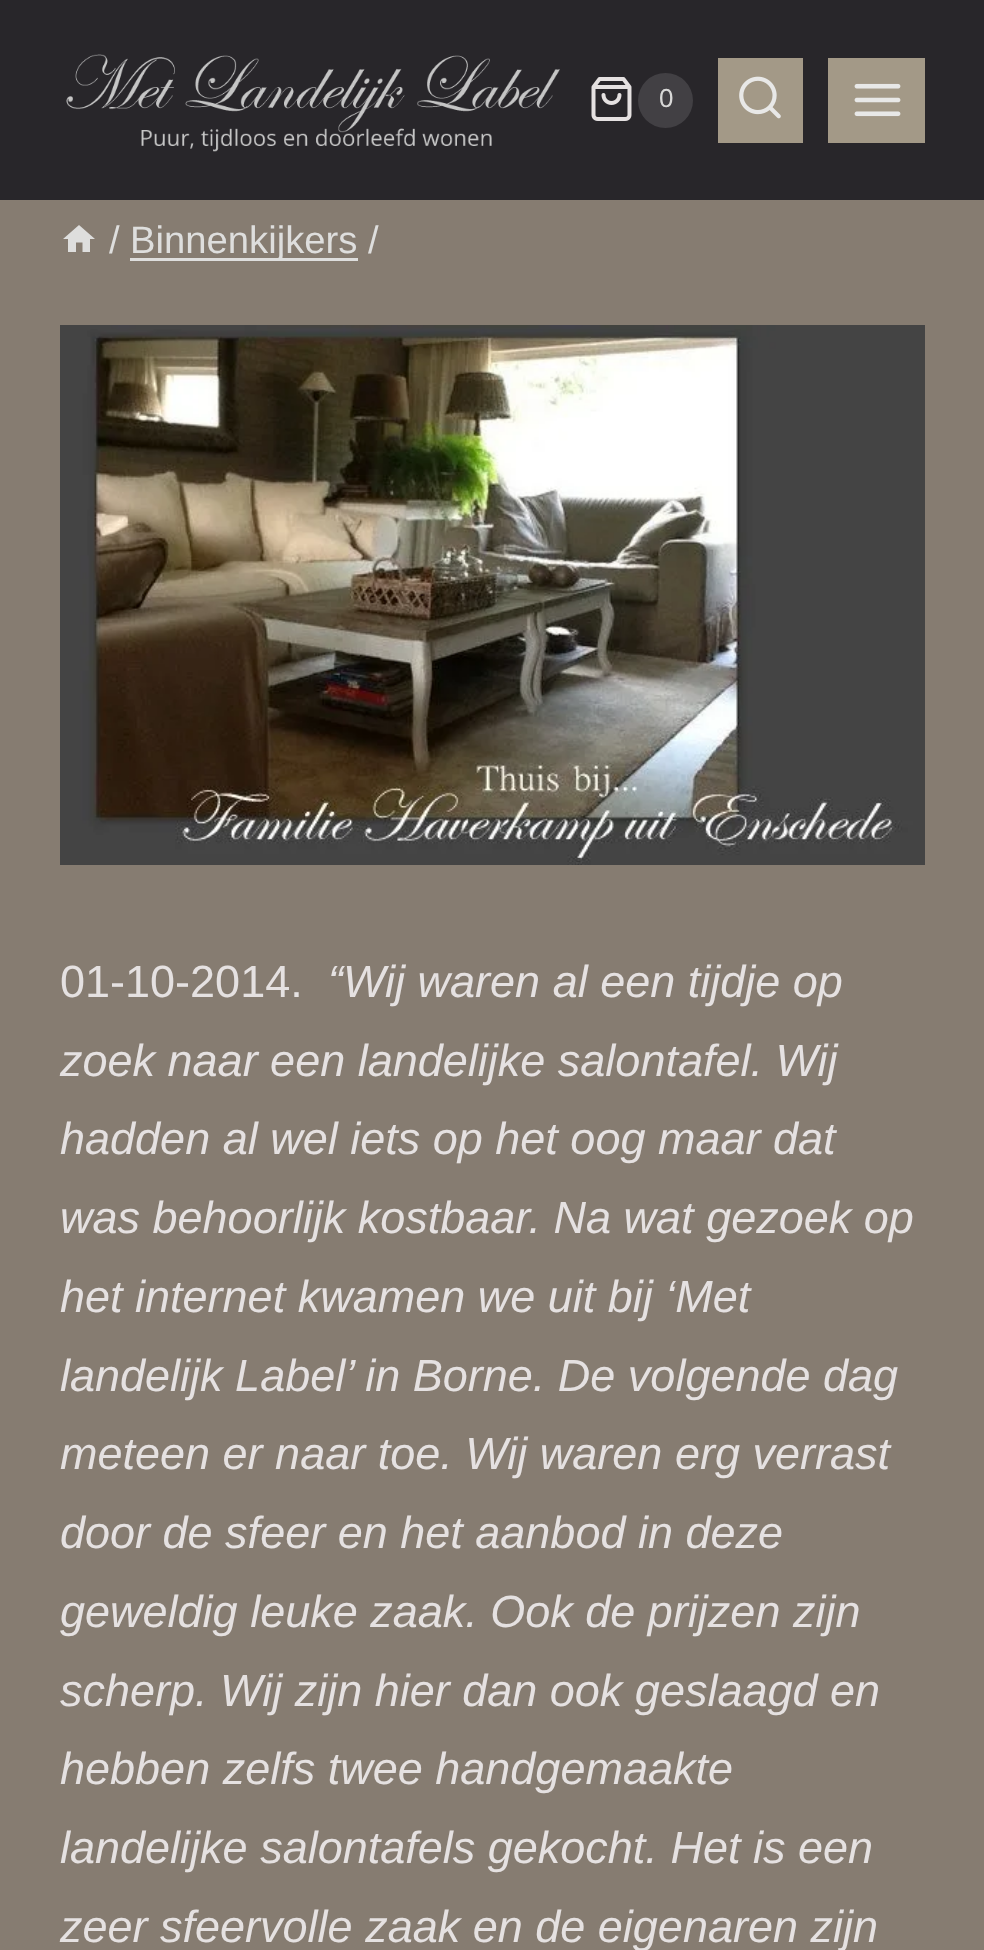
<?xml version="1.0" encoding="UTF-8"?>
<svg xmlns="http://www.w3.org/2000/svg" xmlns:xlink="http://www.w3.org/1999/xlink" width="984" height="1950">
  <rect width="100%" height="100%" fill="#867c71" />
  <rect width="984" height="200" fill="#28262a" />
  <image x="66" y="54" width="494" height="98" xlink:href="image1.png" />
  <image x="591" y="77" width="41" height="44" xlink:href="image2.png" />
  <circle cx="665.5" cy="100.5" r="27.5" fill="#424044" />
  <rect x="718" y="58" width="85" height="85" fill="#a39987" />
  <image x="739" y="76" width="42" height="43" xlink:href="image3.png" />
  <rect x="828" y="58" width="97" height="85" fill="#a39987" />
  <image x="854" y="83" width="47" height="34" xlink:href="image4.png" />
  <path d="M 76 252 h -8 v -13 h -5 l 16 -14 l 16 14 h -5 v 13 h -7.5 v -9.5 h -6.5 z" fill="#dededd" />
  <rect x="130" y="258" width="228" height="3" fill="#dededd" />
  <image x="60" y="325" width="865" height="540" xlink:href="image5.png" />
  <text x="659" y="107" style="font-family: Liberation Sans; font-size: 26px; fill: #d8d8d7">0</text>
  <text x="109" y="253" style="font-family: Liberation Sans; font-size: 38.25px; fill: #dededd">/</text>
  <text x="130" y="253" style="font-family: Liberation Sans; font-size: 38.25px; fill: #dededd">Binnenkijkers /</text>
  <text x="60" y="997" style="font-family: Liberation Sans; font-size: 45px; fill: #e5e1e1">01-10-2014.</text>
  <text x="328" y="997" style="font-family: Liberation Sans; font-size: 45px; font-style: italic; fill: #e5e1e1">“Wij waren al een tijdje op</text>
  <text x="60" y="1076" style="font-family: Liberation Sans; font-size: 45px; font-style: italic; fill: #e5e1e1">zoek naar een landelijke salontafel. Wij</text>
  <text x="60" y="1154" style="font-family: Liberation Sans; font-size: 45px; font-style: italic; fill: #e5e1e1">hadden al wel iets op het oog maar dat</text>
  <text x="60" y="1233" style="font-family: Liberation Sans; font-size: 45px; font-style: italic; fill: #e5e1e1">was behoorlijk kostbaar. Na wat gezoek op</text>
  <text x="60" y="1312" style="font-family: Liberation Sans; font-size: 45px; font-style: italic; fill: #e5e1e1">het internet kwamen we uit bij ‘Met</text>
  <text x="60" y="1391" style="font-family: Liberation Sans; font-size: 45px; font-style: italic; fill: #e5e1e1">landelijk Label’ in Borne. De volgende dag</text>
  <text x="60" y="1469" style="font-family: Liberation Sans; font-size: 45px; font-style: italic; fill: #e5e1e1">meteen er naar toe. Wij waren erg verrast</text>
  <text x="60" y="1548" style="font-family: Liberation Sans; font-size: 45px; font-style: italic; fill: #e5e1e1">door de sfeer en het aanbod in deze</text>
  <text x="60" y="1627" style="font-family: Liberation Sans; font-size: 45px; font-style: italic; fill: #e5e1e1">geweldig leuke zaak. Ook de prijzen zijn</text>
  <text x="60" y="1706" style="font-family: Liberation Sans; font-size: 45px; font-style: italic; fill: #e5e1e1">scherp. Wij zijn hier dan ook geslaagd en</text>
  <text x="60" y="1784" style="font-family: Liberation Sans; font-size: 45px; font-style: italic; fill: #e5e1e1">hebben zelfs twee handgemaakte</text>
  <text x="60" y="1863" style="font-family: Liberation Sans; font-size: 45px; font-style: italic; fill: #e5e1e1">landelijke salontafels gekocht. Het is een</text>
  <text x="60" y="1942" style="font-family: Liberation Sans; font-size: 45px; font-style: italic; fill: #e5e1e1">zeer sfeervolle zaak en de eigenaren zijn</text>
</svg>
